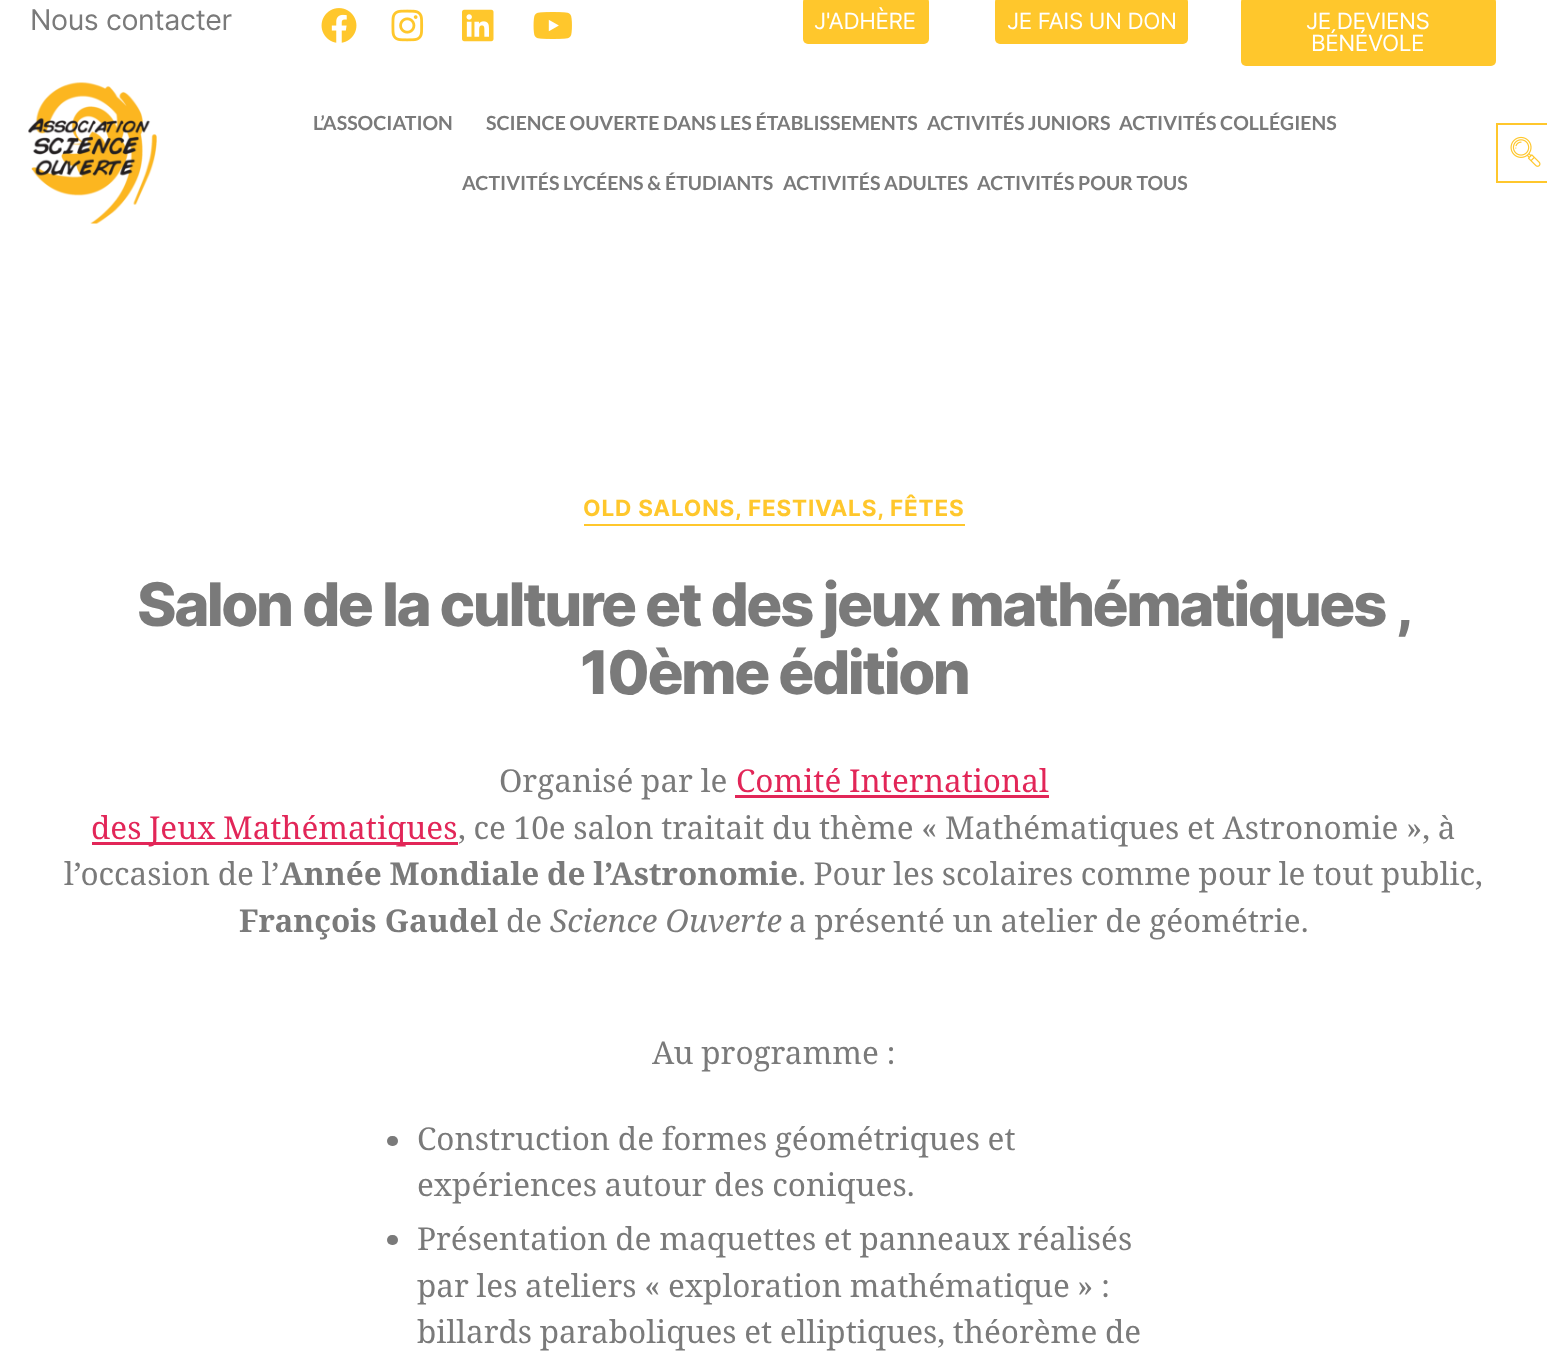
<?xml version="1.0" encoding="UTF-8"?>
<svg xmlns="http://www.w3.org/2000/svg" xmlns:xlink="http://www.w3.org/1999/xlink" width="1547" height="1367">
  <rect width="100%" height="100%" fill="#ffffff" />
  <image x="321" y="8" width="36" height="35" xlink:href="image1.png" />
  <image x="391" y="9" width="33" height="33" xlink:href="image2.png" />
  <image x="462" y="9" width="32" height="33" xlink:href="image3.png" />
  <image x="533" y="12" width="39" height="27" xlink:href="image4.png" />
  <rect x="803" y="-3" width="126" height="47" rx="5" fill="#ffc72c" />
  <rect x="995" y="-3" width="193" height="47" rx="5" fill="#ffc72c" />
  <rect x="1241" y="-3" width="255" height="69" rx="5" fill="#ffc72c" />
  <image x="28" y="82" width="129" height="142" xlink:href="image5.png" />
  <rect x="1497" y="124" width="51" height="58" fill="none" stroke="#ffc72c" stroke-width="2" />
  <image x="1510" y="136" width="31" height="31" xlink:href="image6.png" />
  <rect x="584" y="524" width="381" height="2" fill="#ffc72c" />
  <rect x="735" y="795" width="314" height="3" fill="#e22658" />
  <rect x="92" y="842" width="366" height="3" fill="#e22658" />
  <rect x="387" y="1136" width="11" height="10" rx="5" fill="#7a7a7a" />
  <rect x="387" y="1235" width="11" height="10" rx="5" fill="#7a7a7a" />
  <text x="30" y="30" style="font-family: Inter; font-size: 28.5px; letter-spacing: -0.4px; fill: #7a7a7a">Nous contacter</text>
  <text x="814" y="29" style="font-family: Inter; font-size: 22.5px; letter-spacing: -0.4px; fill: #ffffff">J'ADHÈRE</text>
  <text x="1007" y="29" style="font-family: Inter; font-size: 22.5px; letter-spacing: -0.4px; fill: #ffffff">JE FAIS UN DON</text>
  <text x="1306" y="29" style="font-family: Inter; font-size: 22.5px; letter-spacing: -0.4px; fill: #ffffff">JE DEVIENS</text>
  <text x="1311" y="51" style="font-family: Inter; font-size: 22.5px; letter-spacing: -0.4px; fill: #ffffff">BÉNÉVOLE</text>
  <text x="313" y="130" style="font-family: Lato; font-size: 19.5px; font-weight: bold; fill: #7a7a7a">L’ASSOCIATION</text>
  <text x="486" y="130" style="font-family: Lato; font-size: 19.5px; font-weight: bold; fill: #7a7a7a">SCIENCE OUVERTE DANS LES ÉTABLISSEMENTS</text>
  <text x="927" y="130" style="font-family: Lato; font-size: 19.5px; font-weight: bold; fill: #7a7a7a">ACTIVITÉS JUNIORS</text>
  <text x="1119" y="130" style="font-family: Lato; font-size: 19.5px; font-weight: bold; fill: #7a7a7a">ACTIVITÉS COLLÉGIENS</text>
  <text x="462" y="190" style="font-family: Lato; font-size: 19.5px; font-weight: bold; fill: #7a7a7a">ACTIVITÉS LYCÉENS &amp; ÉTUDIANTS</text>
  <text x="783" y="190" style="font-family: Lato; font-size: 19.5px; font-weight: bold; fill: #7a7a7a">ACTIVITÉS ADULTES</text>
  <text x="977" y="190" style="font-family: Lato; font-size: 19.5px; font-weight: bold; fill: #7a7a7a">ACTIVITÉS POUR TOUS</text>
  <text x="583" y="516" style="font-family: Inter; font-size: 22.5px; font-weight: bold; letter-spacing: 0.8px; fill: #ffc72c">OLD SALONS, FESTIVALS, FÊTES</text>
  <text x="137" y="626" style="font-family: Inter; font-size: 60px; font-weight: 800; letter-spacing: -2.5px; fill: #7a7a7a">Salon de la culture et des jeux mathématiques ,</text>
  <text x="580" y="694" style="font-family: Inter; font-size: 60px; font-weight: 800; letter-spacing: -2.5px; fill: #7a7a7a">10ème édition</text>
  <text x="499" y="792" word-spacing="-0.5" style="font-family: Noto Serif; font-size: 31.5px; fill: #7a7a7a">Organisé par le</text>
  <text x="736" y="792" word-spacing="-0.5" style="font-family: Noto Serif; font-size: 31.5px; fill: #e22658">Comité International</text>
  <text x="91" y="839" word-spacing="-0.5" style="font-family: Noto Serif; font-size: 31.5px; fill: #e22658">des Jeux Mathématiques</text>
  <text x="458" y="839" word-spacing="-0.5" style="font-family: Noto Serif; font-size: 31.5px; fill: #7a7a7a">, ce 10e salon traitait du thème «</text>
  <text x="945" y="839" word-spacing="-0.5" style="font-family: Noto Serif; font-size: 31.5px; fill: #7a7a7a">Mathématiques et Astronomie</text>
  <text x="1406" y="839" word-spacing="-0.5" style="font-family: Noto Serif; font-size: 31.5px; fill: #7a7a7a">», à</text>
  <text x="64" y="885" word-spacing="-0.5" style="font-family: Noto Serif; font-size: 31.5px; fill: #7a7a7a">l’occasion de l’</text>
  <text x="280" y="885" word-spacing="-0.5" style="font-family: Noto Serif; font-size: 31.5px; font-weight: bold; fill: #7a7a7a">Année Mondiale de l’Astronomie</text>
  <text x="798" y="885" word-spacing="-0.5" style="font-family: Noto Serif; font-size: 31.5px; fill: #7a7a7a">. Pour les scolaires comme pour le tout public,</text>
  <text x="239" y="932" style="font-family: Noto Serif; font-size: 31.5px; font-weight: bold; fill: #7a7a7a">François Gaudel</text>
  <text x="506" y="932" style="font-family: Noto Serif; font-size: 31.5px; fill: #7a7a7a">de</text>
  <text x="550" y="932" style="font-family: Noto Serif; font-size: 31.5px; font-style: italic; fill: #7a7a7a">Science Ouverte</text>
  <text x="789" y="932" word-spacing="-0.5" style="font-family: Noto Serif; font-size: 31.5px; fill: #7a7a7a">a présenté un atelier de géométrie.</text>
  <text x="652" y="1064" word-spacing="-0.5" style="font-family: Noto Serif; font-size: 31.5px; fill: #7a7a7a">Au programme :</text>
  <text x="417" y="1150" word-spacing="-0.5" style="font-family: Noto Serif; font-size: 31.5px; fill: #7a7a7a">Construction de formes géométriques et</text>
  <text x="417" y="1196" word-spacing="-0.5" style="font-family: Noto Serif; font-size: 31.5px; fill: #7a7a7a">expériences autour des coniques.</text>
  <text x="417" y="1250" word-spacing="-0.5" style="font-family: Noto Serif; font-size: 31.5px; fill: #7a7a7a">Présentation de maquettes et panneaux réalisés</text>
  <text x="417" y="1297" word-spacing="-0.5" style="font-family: Noto Serif; font-size: 31.5px; fill: #7a7a7a">par les ateliers «</text>
  <text x="668" y="1297" word-spacing="-0.5" style="font-family: Noto Serif; font-size: 31.5px; fill: #7a7a7a">exploration mathématique</text>
  <text x="1077" y="1297" word-spacing="-0.5" style="font-family: Noto Serif; font-size: 31.5px; fill: #7a7a7a">» :</text>
  <text x="417" y="1343" word-spacing="-0.5" style="font-family: Noto Serif; font-size: 31.5px; fill: #7a7a7a">billards paraboliques et elliptiques, théorème de</text>
</svg>
